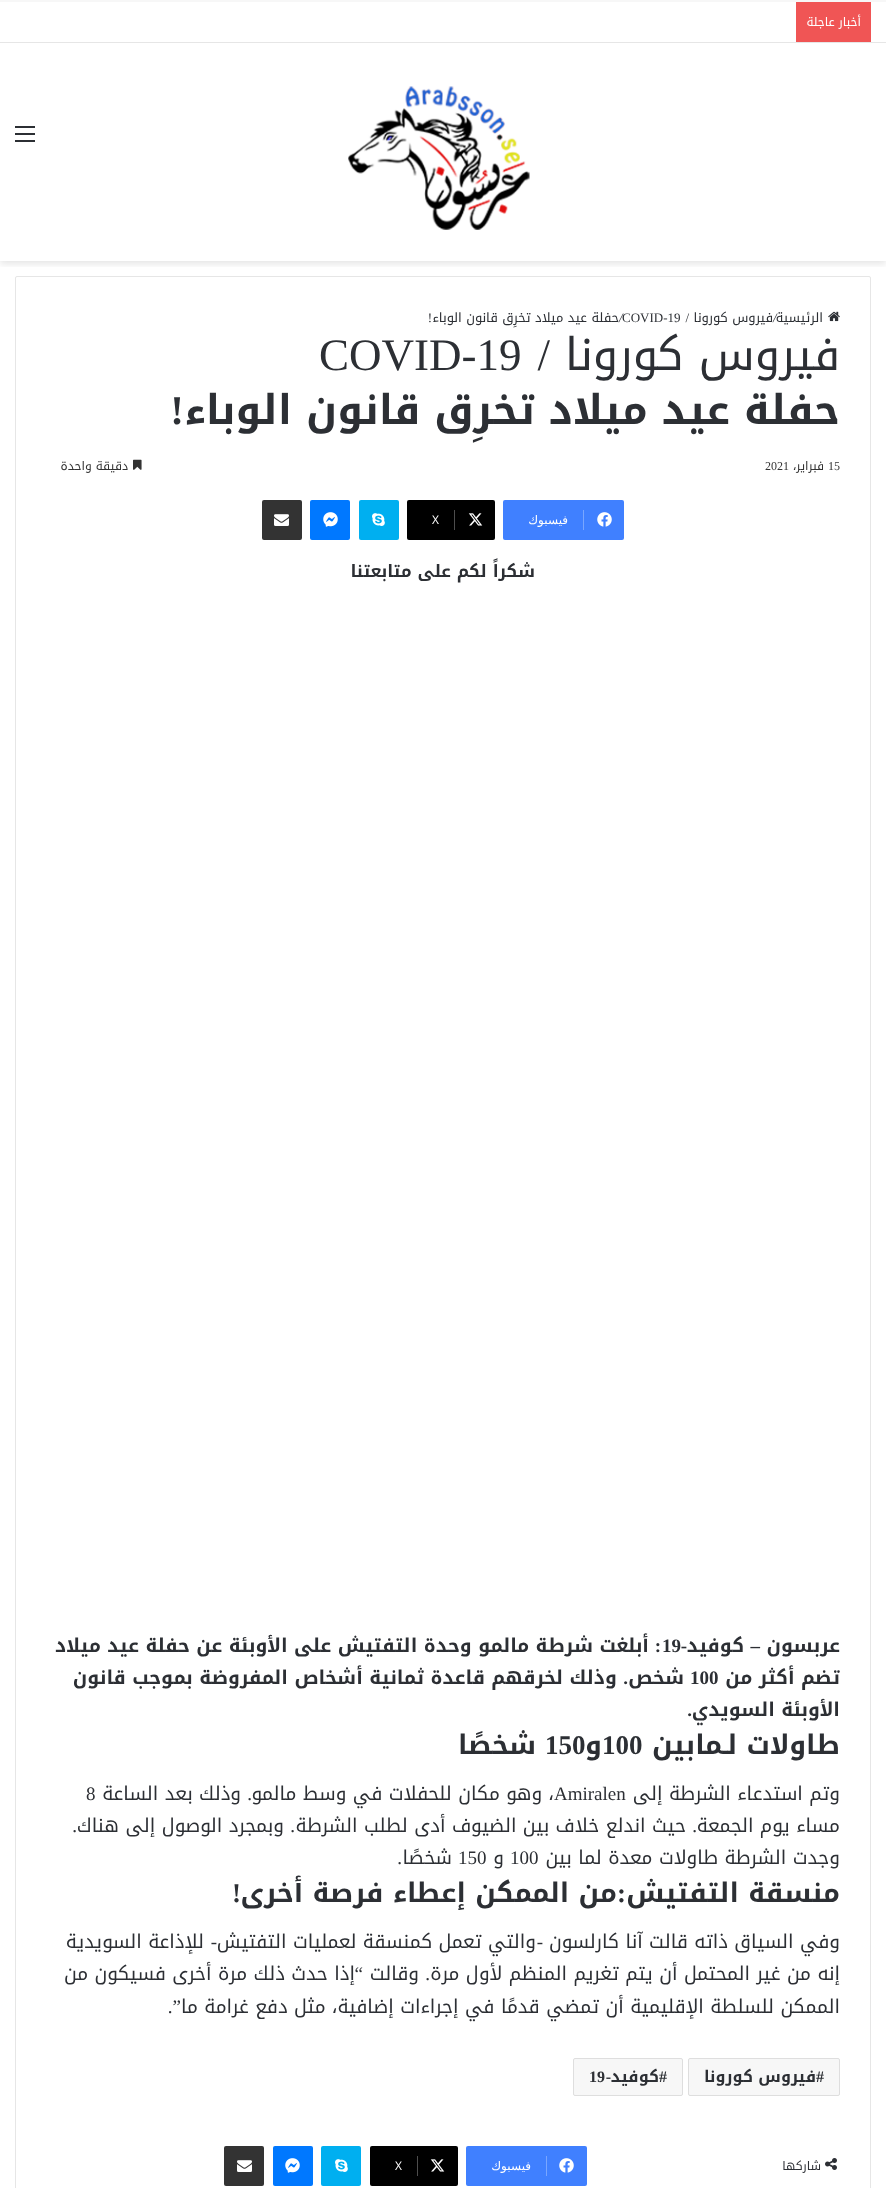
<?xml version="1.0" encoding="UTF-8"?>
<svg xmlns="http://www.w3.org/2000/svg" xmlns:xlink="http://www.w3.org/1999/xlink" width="886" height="2188">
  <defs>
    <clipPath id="clip1"><rect x="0" y="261" width="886" height="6" /></clipPath>
  </defs>
  <rect width="100%" height="100%" fill="#f7f7f7" />
  <rect y="43" width="886" height="2145" fill="#ffffff" />
  <g clip-path="url(#clip1)">
    <rect y="46" width="886" height="218" fill="#000000" fill-opacity="0.1" filter="blur(3.5px)" />
  </g>
  <rect y="2" width="886" height="40" fill="#ffffff" />
  <rect y="42" width="886" height="1" fill="#e6e6e6" />
  <rect x="796" y="2" width="75" height="40" fill="#f05555" />
  <image x="348" y="86" width="182" height="144" xlink:href="image1.png" />
  <rect x="15" y="133" width="20" height="2" fill="#2c2f34" />
  <rect x="15" y="126" width="20" height="2" fill="#2c2f34" />
  <rect x="15" y="140" width="20" height="2" fill="#2c2f34" />
  <rect x="15.5" y="276.5" width="855" height="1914" rx="1.5" fill="none" stroke="#e6e6e6" />
  <image x="828" y="311" width="12" height="11" xlink:href="image2.png" />
  <image x="133" y="459" width="9" height="11" xlink:href="image3.png" />
  <rect x="503" y="500" width="121" height="40" rx="2" fill="#4080ff" />
  <image x="597" y="512" width="15" height="15" xlink:href="image4.png" />
  <rect x="583" y="510" width="1" height="20" fill="#79a6ff" />
  <rect x="407" y="500" width="88" height="40" rx="2" fill="#000000" />
  <image x="468" y="513" width="15" height="13" xlink:href="image5.png" />
  <rect x="454" y="510" width="1" height="20" fill="#4d4d4d" />
  <rect x="359" y="500" width="40" height="40" rx="2" fill="#00aff0" />
  <image x="372" y="513" width="13" height="13" xlink:href="image6.png" />
  <rect x="310" y="500" width="40" height="40" rx="2" fill="#0078ff" />
  <image x="323" y="512" width="15" height="15" xlink:href="image7.png" />
  <rect x="262" y="500" width="40" height="40" rx="2" fill="#333333" />
  <image x="274" y="514" width="15" height="12" xlink:href="image8.png" />
  <rect x="688.5" y="2058.5" width="151" height="37" rx="1.5" fill="#f7f7f7" stroke="#dedede" />
  <rect x="573.5" y="2058.5" width="109" height="37" rx="1.5" fill="#f7f7f7" stroke="#dedede" />
  <image x="825" y="2158" width="12" height="12" xlink:href="image9.png" />
  <rect x="466" y="2146" width="121" height="40" rx="2" fill="#4080ff" />
  <image x="559" y="2158" width="15" height="15" xlink:href="image4.png" />
  <rect x="546" y="2156" width="1" height="20" fill="#79a6ff" />
  <rect x="370" y="2146" width="88" height="40" rx="2" fill="#000000" />
  <image x="430" y="2159" width="15" height="13" xlink:href="image5.png" />
  <rect x="417" y="2156" width="1" height="20" fill="#4d4d4d" />
  <rect x="321" y="2146" width="40" height="40" rx="2" fill="#00aff0" />
  <image x="335" y="2159" width="13" height="13" xlink:href="image6.png" />
  <rect x="273" y="2146" width="40" height="40" rx="2" fill="#0078ff" />
  <image x="285" y="2158" width="15" height="15" xlink:href="image7.png" />
  <rect x="224" y="2146" width="40" height="40" rx="2" fill="#333333" />
  <image x="237" y="2160" width="15" height="12" xlink:href="image8.png" />
  <text x="861" y="26" style="font-family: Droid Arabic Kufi; font-size: 12px; direction: rtl; fill: #ffffff">أخبار عاجلة</text>
  <text x="823" y="322" style="font-family: Droid Arabic Kufi; font-size: 13px; direction: rtl; fill: #2c2f34">الرئيسية</text>
  <text x="773" y="322" style="font-family: Liberation Serif; font-size: 13px; font-style: italic; fill: #2c2f34">/</text>
  <text x="773" y="322" style="font-family: Droid Arabic Kufi; font-size: 13px; direction: rtl; fill: #2c2f34">فيروس كورونا</text>
  <text x="689" y="322" style="font-family: Liberation Serif; font-size: 13px; direction: rtl; fill: #2c2f34">/</text>
  <text x="622" y="322" style="font-family: Liberation Serif; font-size: 13px; fill: #2c2f34">COVID-19</text>
  <text x="619" y="322" style="font-family: Liberation Serif; font-size: 13px; font-style: italic; fill: #2c2f34">/</text>
  <text x="619" y="322" style="font-family: Droid Arabic Kufi; font-size: 13px; direction: rtl; fill: #2c2f34">حفلة عيد ميلاد تخرِق قانون الوباء</text>
  <text x="432" y="322" style="font-family: Liberation Serif; font-size: 13px; direction: rtl; fill: #2c2f34">!</text>
  <text x="840" y="370" style="font-family: Droid Arabic Kufi; font-size: 45px; direction: rtl; fill: #2c2f34">فيروس كورونا</text>
  <text x="550" y="370" style="font-family: Liberation Serif; font-size: 45px; direction: rtl; fill: #2c2f34">/</text>
  <text x="319" y="370" style="font-family: Liberation Serif; font-size: 45px; fill: #2c2f34">COVID-19</text>
  <text x="840" y="424" style="font-family: Droid Arabic Kufi; font-size: 41px; font-weight: bold; direction: rtl; fill: #2c2f34">حفلة عيد ميلاد تخرِق قانون الوباء</text>
  <text x="184" y="424" style="font-family: Liberation Serif; font-size: 41px; font-weight: bold; direction: rtl; fill: #2c2f34">!</text>
  <text x="828" y="470" style="font-family: Liberation Serif; font-size: 12px; fill: #333333">15</text>
  <text x="824" y="470" style="font-family: Droid Arabic Kufi; font-size: 12px; direction: rtl; fill: #333333">فبراير،</text>
  <text x="765" y="470" style="font-family: Liberation Serif; font-size: 12px; fill: #333333">2021</text>
  <text x="128" y="470" style="font-family: Droid Arabic Kufi; font-size: 12px; direction: rtl; fill: #333333">دقيقة واحدة</text>
  <text x="568" y="524" style="font-family: DejaVu Sans; font-size: 12px; direction: rtl; fill: #ffffff">فيسبوك</text>
  <text x="432" y="524" style="font-family: Open Sans; font-size: 12px; fill: #ffffff">X</text>
  <text x="535" y="577" style="font-family: Droid Arabic Kufi; font-size: 17px; font-weight: bold; direction: rtl; fill: #2c2f34">شكراً لكم على متابعتنا</text>
  <text x="840" y="1652" style="font-family: Droid Arabic Kufi; font-size: 19px; font-weight: bold; direction: rtl; fill: #2c2f34">عربسون</text>
  <text x="760" y="1652" style="font-family: Liberation Serif; font-size: 19px; font-weight: bold; direction: rtl; fill: #2c2f34">–</text>
  <text x="744" y="1652" style="font-family: Droid Arabic Kufi; font-size: 19px; font-weight: bold; direction: rtl; fill: #2c2f34">كوفيد</text>
  <text x="687" y="1652" style="font-family: Liberation Serif; font-size: 19px; font-weight: bold; direction: rtl; fill: #2c2f34">-</text>
  <text x="662" y="1652" style="font-family: Liberation Serif; font-size: 19px; font-weight: bold; fill: #2c2f34">19</text>
  <text x="661" y="1652" style="font-family: Liberation Serif; font-size: 19px; font-weight: bold; direction: rtl; fill: #2c2f34">:</text>
  <text x="649" y="1652" style="font-family: Droid Arabic Kufi; font-size: 19px; font-weight: bold; direction: rtl; fill: #2c2f34">أبلغت شرطة مالمو وحدة التفتيش على الأوبئة عن حفلة عيد ميلاد</text>
  <text x="840" y="1684" style="font-family: Droid Arabic Kufi; font-size: 19px; font-weight: bold; direction: rtl; fill: #2c2f34">تضم أكثر من</text>
  <text x="690" y="1684" style="font-family: Liberation Serif; font-size: 19px; font-weight: bold; fill: #2c2f34">100</text>
  <text x="684" y="1684" style="font-family: Droid Arabic Kufi; font-size: 19px; font-weight: bold; direction: rtl; fill: #2c2f34">شخص</text>
  <text x="628" y="1684" style="font-family: Liberation Serif; font-size: 19px; font-weight: bold; direction: rtl; fill: #2c2f34">.</text>
  <text x="617" y="1684" style="font-family: Droid Arabic Kufi; font-size: 19px; font-weight: bold; direction: rtl; fill: #2c2f34">وذلك لخرقهم قاعدة ثمانية أشخاص المفروضة بموجب قانون</text>
  <text x="840" y="1716" style="font-family: Droid Arabic Kufi; font-size: 19px; font-weight: bold; direction: rtl; fill: #2c2f34">الأوبئة السويدي</text>
  <text x="692" y="1716" style="font-family: Liberation Serif; font-size: 19px; font-weight: bold; direction: rtl; fill: #2c2f34">.</text>
  <text x="840" y="1754" style="font-family: Droid Arabic Kufi; font-size: 27px; font-weight: bold; direction: rtl; fill: #2c2f34">طاولات لـمابين</text>
  <text x="602" y="1754" style="font-family: Liberation Serif; font-size: 27px; font-weight: bold; fill: #2c2f34">100</text>
  <text x="602" y="1754" style="font-family: Droid Arabic Kufi; font-size: 27px; font-weight: bold; direction: rtl; fill: #2c2f34">و</text>
  <text x="545" y="1754" style="font-family: Liberation Serif; font-size: 27px; font-weight: bold; fill: #2c2f34">150</text>
  <text x="536" y="1754" style="font-family: Droid Arabic Kufi; font-size: 27px; font-weight: bold; direction: rtl; fill: #2c2f34">شخصًا</text>
  <text x="840" y="1800" style="font-family: Droid Arabic Kufi; font-size: 19px; direction: rtl; fill: #2c2f34">وتم استدعاء الشرطة إلى</text>
  <text x="554" y="1800" style="font-family: Liberation Serif; font-size: 19px; fill: #2c2f34">Amiralen</text>
  <text x="554" y="1800" style="font-family: Droid Arabic Kufi; font-size: 19px; direction: rtl; fill: #2c2f34">، وهو مكان للحفلات في وسط مالمو</text>
  <text x="252" y="1800" style="font-family: Liberation Serif; font-size: 19px; direction: rtl; fill: #2c2f34">.</text>
  <text x="241" y="1800" style="font-family: Droid Arabic Kufi; font-size: 19px; direction: rtl; fill: #2c2f34">وذلك بعد الساعة</text>
  <text x="86" y="1800" style="font-family: Liberation Serif; font-size: 19px; fill: #2c2f34">8</text>
  <text x="840" y="1832" style="font-family: Droid Arabic Kufi; font-size: 19px; direction: rtl; fill: #2c2f34">مساء يوم الجمعة</text>
  <text x="697" y="1832" style="font-family: Liberation Serif; font-size: 19px; direction: rtl; fill: #2c2f34">.</text>
  <text x="686" y="1832" style="font-family: Droid Arabic Kufi; font-size: 19px; direction: rtl; fill: #2c2f34">حيث اندلع خلاف بين الضيوف أدى لطلب الشرطة</text>
  <text x="295" y="1832" style="font-family: Liberation Serif; font-size: 19px; direction: rtl; fill: #2c2f34">.</text>
  <text x="284" y="1832" style="font-family: Droid Arabic Kufi; font-size: 19px; direction: rtl; fill: #2c2f34">وبمجرد الوصول إلى هناك</text>
  <text x="77" y="1832" style="font-family: Liberation Serif; font-size: 19px; direction: rtl; fill: #2c2f34">.</text>
  <text x="840" y="1864" style="font-family: Droid Arabic Kufi; font-size: 19px; direction: rtl; fill: #2c2f34">وجدت الشرطة طاولات معدة لما بين</text>
  <text x="510" y="1864" style="font-family: Liberation Serif; font-size: 19px; fill: #2c2f34">100</text>
  <text x="504" y="1864" style="font-family: Droid Arabic Kufi; font-size: 19px; direction: rtl; fill: #2c2f34">و</text>
  <text x="458" y="1864" style="font-family: Liberation Serif; font-size: 19px; fill: #2c2f34">150</text>
  <text x="452" y="1864" style="font-family: Droid Arabic Kufi; font-size: 19px; direction: rtl; fill: #2c2f34">شخصًا</text>
  <text x="402" y="1864" style="font-family: Liberation Serif; font-size: 19px; direction: rtl; fill: #2c2f34">.</text>
  <text x="840" y="1902" style="font-family: Droid Arabic Kufi; font-size: 27px; font-weight: bold; direction: rtl; fill: #2c2f34">منسقة التفتيش</text>
  <text x="626" y="1902" style="font-family: Liberation Serif; font-size: 27px; font-weight: bold; direction: rtl; fill: #2c2f34">:</text>
  <text x="617" y="1902" style="font-family: Droid Arabic Kufi; font-size: 27px; font-weight: bold; direction: rtl; fill: #2c2f34">من الممكن إعطاء فرصة أخرى</text>
  <text x="241" y="1902" style="font-family: Liberation Serif; font-size: 27px; font-weight: bold; direction: rtl; fill: #2c2f34">!</text>
  <text x="840" y="1948" style="font-family: Droid Arabic Kufi; font-size: 19px; direction: rtl; fill: #2c2f34">وفي السياق ذاته قالت آنا كارلسون</text>
  <text x="543" y="1948" style="font-family: Liberation Serif; font-size: 19px; direction: rtl; fill: #2c2f34">-</text>
  <text x="536" y="1948" style="font-family: Droid Arabic Kufi; font-size: 19px; direction: rtl; fill: #2c2f34">والتي تعمل كمنسقة لعمليات التفتيش</text>
  <text x="217" y="1948" style="font-family: Liberation Serif; font-size: 19px; direction: rtl; fill: #2c2f34">-</text>
  <text x="204" y="1948" style="font-family: Droid Arabic Kufi; font-size: 19px; direction: rtl; fill: #2c2f34">للإذاعة السويدية</text>
  <text x="840" y="1980" style="font-family: Droid Arabic Kufi; font-size: 19px; direction: rtl; fill: #2c2f34">إنه من غير المحتمل أن يتم تغريم المنظم لأول مرة</text>
  <text x="419" y="1980" style="font-family: Droid Arabic Kufi; font-size: 19px; direction: rtl; fill: #2c2f34">وقالت</text>
  <text x="363" y="1980" style="font-family: Liberation Serif; font-size: 19px; direction: rtl; fill: #2c2f34">“</text>
  <text x="355" y="1980" style="font-family: Droid Arabic Kufi; font-size: 19px; direction: rtl; fill: #2c2f34">إذا حدث ذلك مرة أخرى فسيكون من</text>
  <text x="430" y="1980" style="font-family: Liberation Serif; font-size: 19px; direction: rtl; fill: #2c2f34">.</text>
  <text x="840" y="2013" style="font-family: Droid Arabic Kufi; font-size: 19px; direction: rtl; fill: #2c2f34">الممكن للسلطة الإقليمية أن تمضي قدمًا في إجراءات إضافية، مثل دفع غرامة ما</text>
  <text x="181" y="2013" style="font-family: Liberation Serif; font-size: 19px; direction: rtl; fill: #2c2f34">”.</text>
  <text x="816" y="2082" style="font-family: Liberation Serif; font-size: 16px; font-weight: bold; fill: #2c2f34">#</text>
  <text x="816" y="2082" style="font-family: Droid Arabic Kufi; font-size: 16px; font-weight: bold; direction: rtl; fill: #2c2f34">فيروس كورونا</text>
  <text x="659" y="2082" style="font-family: Liberation Serif; font-size: 16px; font-weight: bold; fill: #2c2f34">#</text>
  <text x="659" y="2082" style="font-family: Droid Arabic Kufi; font-size: 16px; font-weight: bold; direction: rtl; fill: #2c2f34">كوفيد</text>
  <text x="611" y="2082" style="font-family: Liberation Serif; font-size: 16px; font-weight: bold; direction: rtl; fill: #2c2f34">-</text>
  <text x="589" y="2082" style="font-family: Liberation Serif; font-size: 16px; font-weight: bold; fill: #2c2f34">19</text>
  <text x="821" y="2170" style="font-family: Droid Arabic Kufi; font-size: 12px; direction: rtl; fill: #2c2f34">شاركها</text>
  <text x="531" y="2170" style="font-family: DejaVu Sans; font-size: 12px; direction: rtl; fill: #ffffff">فيسبوك</text>
  <text x="395" y="2170" style="font-family: Open Sans; font-size: 12px; fill: #ffffff">X</text>
</svg>
